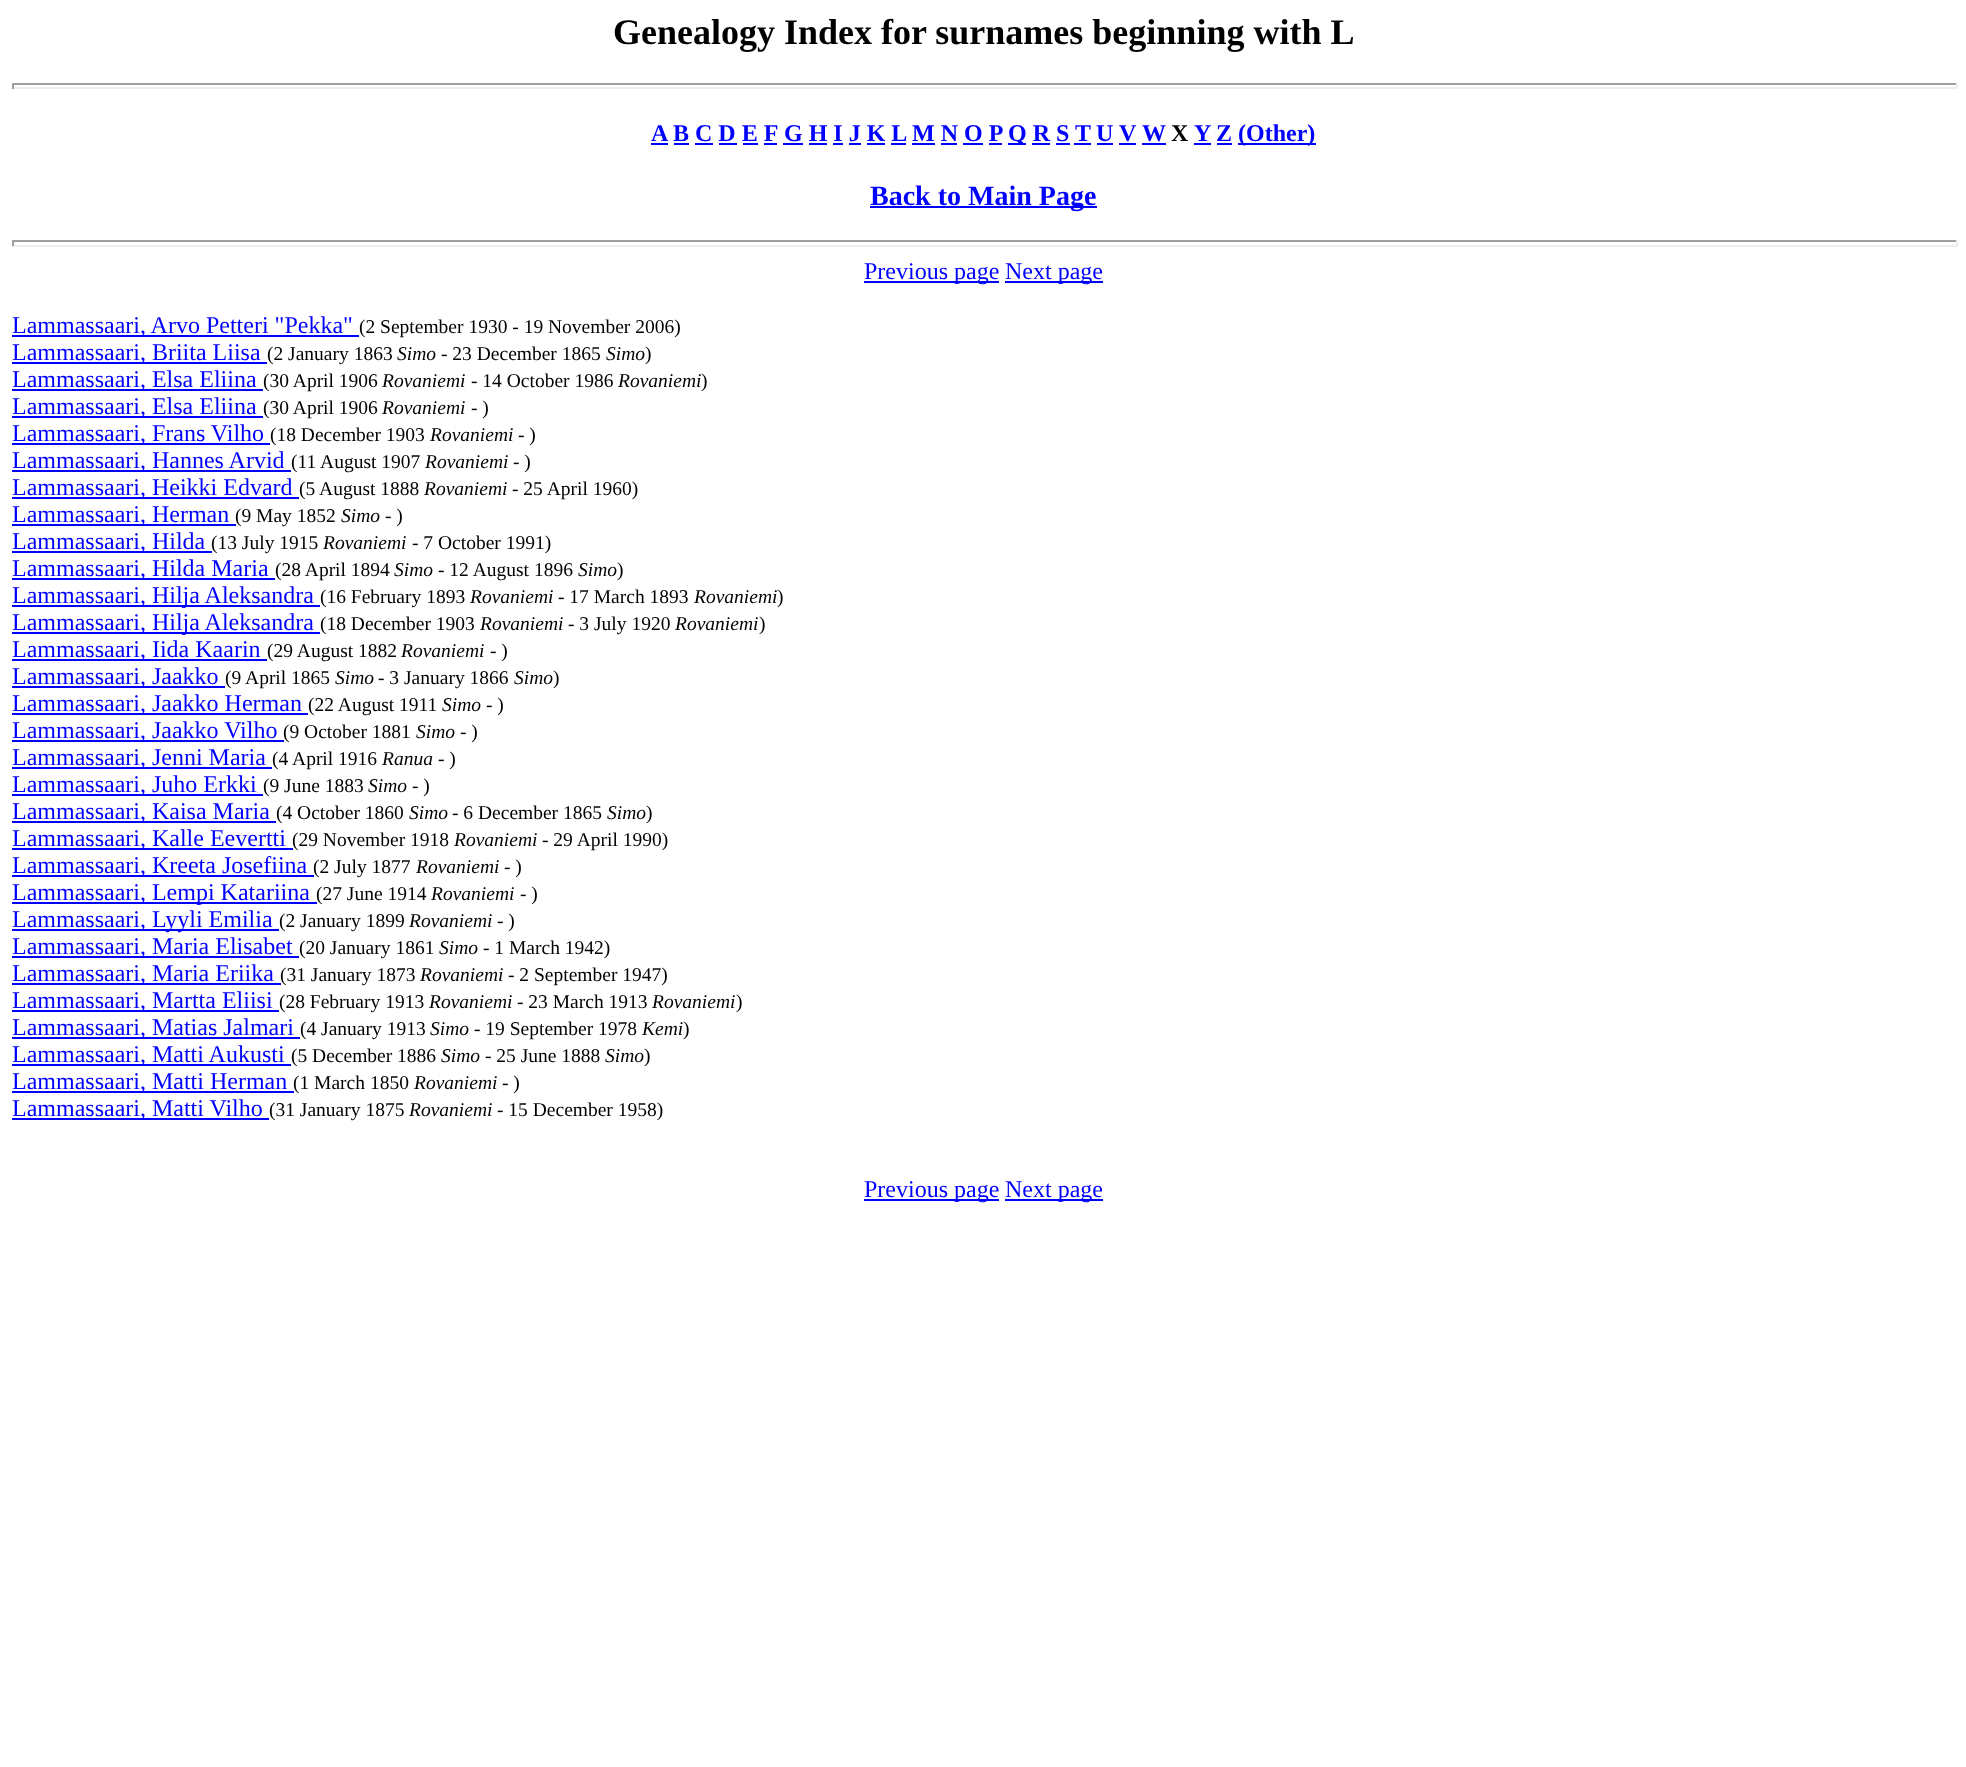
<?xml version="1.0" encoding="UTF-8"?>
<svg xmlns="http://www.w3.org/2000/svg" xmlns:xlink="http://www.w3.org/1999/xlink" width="1966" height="1767">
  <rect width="100%" height="100%" fill="#ffffff" />
  <rect x="12" y="83" width="1946" height="2" fill="#9f9f9f" />
  <rect x="1956" y="83" width="2" height="6" fill="#eeeeee" />
  <rect x="12" y="87" width="1946" height="2" fill="#eeeeee" />
  <rect x="12" y="83" width="2" height="6" fill="#9f9f9f" />
  <rect x="651" y="143" width="17" height="2" fill="#0000ff" />
  <rect x="674" y="143" width="15" height="2" fill="#0000ff" />
  <rect x="783" y="143" width="20" height="2" fill="#0000ff" />
  <rect x="912" y="143" width="23" height="2" fill="#0000ff" />
  <rect x="1008" y="143" width="18" height="2" fill="#0000ff" />
  <rect x="1074" y="143" width="17" height="2" fill="#0000ff" />
  <rect x="1097" y="143" width="16" height="2" fill="#0000ff" />
  <rect x="1119" y="143" width="17" height="2" fill="#0000ff" />
  <rect x="1142" y="143" width="24" height="2" fill="#0000ff" />
  <rect x="1194" y="143" width="17" height="2" fill="#0000ff" />
  <rect x="1217" y="143" width="15" height="2" fill="#0000ff" />
  <rect x="1238" y="143" width="78" height="2" fill="#0000ff" />
  <rect x="695" y="143" width="18" height="2" fill="#0000ff" />
  <rect x="719" y="143" width="18" height="2" fill="#0000ff" />
  <rect x="743" y="143" width="15" height="2" fill="#0000ff" />
  <rect x="764" y="143" width="13" height="2" fill="#0000ff" />
  <rect x="809" y="143" width="18" height="2" fill="#0000ff" />
  <rect x="833" y="143" width="10" height="2" fill="#0000ff" />
  <rect x="849" y="143" width="12" height="2" fill="#0000ff" />
  <rect x="867" y="143" width="18" height="2" fill="#0000ff" />
  <rect x="891" y="143" width="15" height="2" fill="#0000ff" />
  <rect x="941" y="143" width="16" height="2" fill="#0000ff" />
  <rect x="963" y="143" width="20" height="2" fill="#0000ff" />
  <rect x="989" y="143" width="13" height="2" fill="#0000ff" />
  <rect x="1032" y="143" width="18" height="2" fill="#0000ff" />
  <rect x="1056" y="143" width="14" height="2" fill="#0000ff" />
  <rect x="870" y="206" width="227" height="2" fill="#0000ff" />
  <rect x="12" y="240" width="1946" height="2" fill="#9f9f9f" />
  <rect x="1956" y="240" width="2" height="6" fill="#eeeeee" />
  <rect x="12" y="245" width="1946" height="2" fill="#eeeeee" />
  <rect x="12" y="240" width="2" height="6" fill="#9f9f9f" />
  <rect x="864" y="281" width="135" height="2" fill="#0000ff" />
  <rect x="1005" y="281" width="98" height="2" fill="#0000ff" />
  <rect x="12" y="335" width="347" height="2" fill="#0000ff" />
  <rect x="12" y="362" width="255" height="2" fill="#0000ff" />
  <rect x="12" y="389" width="251" height="2" fill="#0000ff" />
  <rect x="12" y="416" width="251" height="2" fill="#0000ff" />
  <rect x="12" y="443" width="258" height="2" fill="#0000ff" />
  <rect x="12" y="470" width="279" height="2" fill="#0000ff" />
  <rect x="12" y="497" width="287" height="2" fill="#0000ff" />
  <rect x="12" y="524" width="224" height="2" fill="#0000ff" />
  <rect x="12" y="551" width="200" height="2" fill="#0000ff" />
  <rect x="12" y="578" width="263" height="2" fill="#0000ff" />
  <rect x="12" y="605" width="308" height="2" fill="#0000ff" />
  <rect x="12" y="632" width="308" height="2" fill="#0000ff" />
  <rect x="12" y="659" width="255" height="2" fill="#0000ff" />
  <rect x="12" y="686" width="213" height="2" fill="#0000ff" />
  <rect x="12" y="713" width="296" height="2" fill="#0000ff" />
  <rect x="12" y="740" width="272" height="2" fill="#0000ff" />
  <rect x="12" y="767" width="260" height="2" fill="#0000ff" />
  <rect x="12" y="794" width="251" height="2" fill="#0000ff" />
  <rect x="12" y="821" width="264" height="2" fill="#0000ff" />
  <rect x="12" y="848" width="281" height="2" fill="#0000ff" />
  <rect x="12" y="875" width="302" height="2" fill="#0000ff" />
  <rect x="12" y="902" width="305" height="2" fill="#0000ff" />
  <rect x="12" y="929" width="267" height="2" fill="#0000ff" />
  <rect x="12" y="956" width="287" height="2" fill="#0000ff" />
  <rect x="12" y="983" width="269" height="2" fill="#0000ff" />
  <rect x="12" y="1010" width="267" height="2" fill="#0000ff" />
  <rect x="12" y="1037" width="288" height="2" fill="#0000ff" />
  <rect x="12" y="1064" width="279" height="2" fill="#0000ff" />
  <rect x="12" y="1091" width="282" height="2" fill="#0000ff" />
  <rect x="12" y="1118" width="257" height="2" fill="#0000ff" />
  <rect x="864" y="1199" width="135" height="2" fill="#0000ff" />
  <rect x="1005" y="1199" width="98" height="2" fill="#0000ff" />
  <text x="613" y="44" style="font-family: Liberation Serif; font-size: 36px; font-weight: bold; fill: #000000">Genealogy Index for surnames beginning with L</text>
  <text x="651" y="141" style="font-family: Liberation Serif; font-size: 24px; font-weight: bold; fill: #0000ff">A</text>
  <text x="673" y="141" style="font-family: Liberation Serif; font-size: 24px; font-weight: bold; fill: #0000ff">B C D E F</text>
  <text x="784" y="141" style="font-family: Liberation Serif; font-size: 24px; font-weight: bold; fill: #0000ff">G H I J K L</text>
  <text x="912" y="141" style="font-family: Liberation Serif; font-size: 24px; font-weight: bold; fill: #0000ff">M N O P</text>
  <text x="1008" y="141" style="font-family: Liberation Serif; font-size: 24px; font-weight: bold; fill: #0000ff">Q R S</text>
  <text x="1075" y="141" style="font-family: Liberation Serif; font-size: 24px; font-weight: bold; fill: #0000ff">T</text>
  <text x="1096" y="141" style="font-family: Liberation Serif; font-size: 24px; font-weight: bold; fill: #0000ff">U</text>
  <text x="1119" y="141" style="font-family: Liberation Serif; font-size: 24px; font-weight: bold; fill: #0000ff">V</text>
  <text x="1142" y="141" style="font-family: Liberation Serif; font-size: 24px; font-weight: bold; fill: #0000ff">W</text>
  <text x="1171" y="141" style="font-family: Liberation Serif; font-size: 24px; font-weight: bold; fill: #000000">X</text>
  <text x="1194" y="141" style="font-family: Liberation Serif; font-size: 24px; font-weight: bold; fill: #0000ff">Y</text>
  <text x="1216" y="141" style="font-family: Liberation Serif; font-size: 24px; font-weight: bold; fill: #0000ff">Z</text>
  <text x="1238" y="141" style="font-family: Liberation Serif; font-size: 24px; font-weight: bold; fill: #0000ff">(Other)</text>
  <text x="870" y="205" style="font-family: Liberation Serif; font-size: 28px; font-weight: bold; fill: #0000ff">Back to Main Page</text>
  <text x="864" y="279" style="font-family: Liberation Serif; font-size: 24px; fill: #0000ff">Previous page</text>
  <text x="1005" y="279" style="font-family: Liberation Serif; font-size: 24px; fill: #0000ff">Next page</text>
  <text x="12" y="333" style="font-family: Liberation Serif; font-size: 24px; fill: #0000ff">Lammassaari, Arvo Petteri "Pekka"</text>
  <text x="359" y="333" style="font-family: Liberation Serif; font-size: 19.5px; fill: #000000">(2 September 1930 - 19 November 2006)</text>
  <text x="12" y="360" style="font-family: Liberation Serif; font-size: 24px; fill: #0000ff">Lammassaari, Briita Liisa</text>
  <text x="267" y="360" style="font-family: Liberation Serif; font-size: 19.5px; fill: #000000">(2 January 1863</text>
  <text x="397" y="360" style="font-family: Liberation Serif; font-size: 19.5px; font-style: italic; fill: #000000">Simo</text>
  <text x="441" y="360" style="font-family: Liberation Serif; font-size: 19.5px; fill: #000000">- 23 December 1865</text>
  <text x="606" y="360" style="font-family: Liberation Serif; font-size: 19.5px; font-style: italic; fill: #000000">Simo</text>
  <text x="645" y="360" style="font-family: Liberation Serif; font-size: 19.5px; fill: #000000">)</text>
  <text x="12" y="387" style="font-family: Liberation Serif; font-size: 24px; fill: #0000ff">Lammassaari, Elsa Eliina</text>
  <text x="263" y="387" style="font-family: Liberation Serif; font-size: 19.5px; fill: #000000">(30 April 1906</text>
  <text x="382" y="387" style="font-family: Liberation Serif; font-size: 19.5px; font-style: italic; fill: #000000">Rovaniemi</text>
  <text x="471" y="387" style="font-family: Liberation Serif; font-size: 19.5px; fill: #000000">- 14 October 1986</text>
  <text x="618" y="387" style="font-family: Liberation Serif; font-size: 19.5px; font-style: italic; fill: #000000">Rovaniemi</text>
  <text x="701" y="387" style="font-family: Liberation Serif; font-size: 19.5px; fill: #000000">)</text>
  <text x="12" y="414" style="font-family: Liberation Serif; font-size: 24px; fill: #0000ff">Lammassaari, Elsa Eliina</text>
  <text x="263" y="414" style="font-family: Liberation Serif; font-size: 19.5px; fill: #000000">(30 April 1906</text>
  <text x="382" y="414" style="font-family: Liberation Serif; font-size: 19.5px; font-style: italic; fill: #000000">Rovaniemi</text>
  <text x="471" y="414" style="font-family: Liberation Serif; font-size: 19.5px; fill: #000000">- )</text>
  <text x="12" y="441" style="font-family: Liberation Serif; font-size: 24px; fill: #0000ff">Lammassaari, Frans Vilho</text>
  <text x="270" y="441" style="font-family: Liberation Serif; font-size: 19.5px; fill: #000000">(18 December 1903</text>
  <text x="430" y="441" style="font-family: Liberation Serif; font-size: 19.5px; font-style: italic; fill: #000000">Rovaniemi</text>
  <text x="518" y="441" style="font-family: Liberation Serif; font-size: 19.5px; fill: #000000">- )</text>
  <text x="12" y="468" style="font-family: Liberation Serif; font-size: 24px; fill: #0000ff">Lammassaari, Hannes Arvid</text>
  <text x="291" y="468" style="font-family: Liberation Serif; font-size: 19.5px; fill: #000000">(11 August 1907</text>
  <text x="425" y="468" style="font-family: Liberation Serif; font-size: 19.5px; font-style: italic; fill: #000000">Rovaniemi</text>
  <text x="513" y="468" style="font-family: Liberation Serif; font-size: 19.5px; fill: #000000">- )</text>
  <text x="12" y="495" style="font-family: Liberation Serif; font-size: 24px; fill: #0000ff">Lammassaari, Heikki Edvard</text>
  <text x="299" y="495" style="font-family: Liberation Serif; font-size: 19.5px; fill: #000000">(5 August 1888</text>
  <text x="424" y="495" style="font-family: Liberation Serif; font-size: 19.5px; font-style: italic; fill: #000000">Rovaniemi</text>
  <text x="512" y="495" style="font-family: Liberation Serif; font-size: 19.5px; fill: #000000">- 25 April 1960)</text>
  <text x="12" y="522" style="font-family: Liberation Serif; font-size: 24px; fill: #0000ff">Lammassaari, Herman</text>
  <text x="235" y="522" style="font-family: Liberation Serif; font-size: 19.5px; fill: #000000">(9 May 1852</text>
  <text x="341" y="522" style="font-family: Liberation Serif; font-size: 19.5px; font-style: italic; fill: #000000">Simo</text>
  <text x="385" y="522" style="font-family: Liberation Serif; font-size: 19.5px; fill: #000000">- )</text>
  <text x="12" y="549" style="font-family: Liberation Serif; font-size: 24px; fill: #0000ff">Lammassaari, Hilda</text>
  <text x="211" y="549" style="font-family: Liberation Serif; font-size: 19.5px; fill: #000000">(13 July 1915</text>
  <text x="323" y="549" style="font-family: Liberation Serif; font-size: 19.5px; font-style: italic; fill: #000000">Rovaniemi</text>
  <text x="412" y="549" style="font-family: Liberation Serif; font-size: 19.5px; fill: #000000">- 7 October 1991)</text>
  <text x="12" y="576" style="font-family: Liberation Serif; font-size: 24px; fill: #0000ff">Lammassaari, Hilda Maria</text>
  <text x="275" y="576" style="font-family: Liberation Serif; font-size: 19.5px; fill: #000000">(28 April 1894</text>
  <text x="394" y="576" style="font-family: Liberation Serif; font-size: 19.5px; font-style: italic; fill: #000000">Simo</text>
  <text x="438" y="576" style="font-family: Liberation Serif; font-size: 19.5px; fill: #000000">- 12 August 1896</text>
  <text x="578" y="576" style="font-family: Liberation Serif; font-size: 19.5px; font-style: italic; fill: #000000">Simo</text>
  <text x="617" y="576" style="font-family: Liberation Serif; font-size: 19.5px; fill: #000000">)</text>
  <text x="12" y="603" style="font-family: Liberation Serif; font-size: 24px; fill: #0000ff">Lammassaari, Hilja Aleksandra</text>
  <text x="320" y="603" style="font-family: Liberation Serif; font-size: 19.5px; fill: #000000">(16 February 1893</text>
  <text x="470" y="603" style="font-family: Liberation Serif; font-size: 19.5px; font-style: italic; fill: #000000">Rovaniemi</text>
  <text x="558" y="603" style="font-family: Liberation Serif; font-size: 19.5px; fill: #000000">- 17 March 1893</text>
  <text x="694" y="603" style="font-family: Liberation Serif; font-size: 19.5px; font-style: italic; fill: #000000">Rovaniemi</text>
  <text x="777" y="603" style="font-family: Liberation Serif; font-size: 19.5px; fill: #000000">)</text>
  <text x="12" y="630" style="font-family: Liberation Serif; font-size: 24px; fill: #0000ff">Lammassaari, Hilja Aleksandra</text>
  <text x="320" y="630" style="font-family: Liberation Serif; font-size: 19.5px; fill: #000000">(18 December 1903</text>
  <text x="480" y="630" style="font-family: Liberation Serif; font-size: 19.5px; font-style: italic; fill: #000000">Rovaniemi</text>
  <text x="568" y="630" style="font-family: Liberation Serif; font-size: 19.5px; fill: #000000">- 3 July 1920</text>
  <text x="675" y="630" style="font-family: Liberation Serif; font-size: 19.5px; font-style: italic; fill: #000000">Rovaniemi</text>
  <text x="759" y="630" style="font-family: Liberation Serif; font-size: 19.5px; fill: #000000">)</text>
  <text x="12" y="657" style="font-family: Liberation Serif; font-size: 24px; fill: #0000ff">Lammassaari, Iida Kaarin</text>
  <text x="267" y="657" style="font-family: Liberation Serif; font-size: 19.5px; fill: #000000">(29 August 1882</text>
  <text x="401" y="657" style="font-family: Liberation Serif; font-size: 19.5px; font-style: italic; fill: #000000">Rovaniemi</text>
  <text x="490" y="657" style="font-family: Liberation Serif; font-size: 19.5px; fill: #000000">- )</text>
  <text x="12" y="684" style="font-family: Liberation Serif; font-size: 24px; fill: #0000ff">Lammassaari, Jaakko</text>
  <text x="225" y="684" style="font-family: Liberation Serif; font-size: 19.5px; fill: #000000">(9 April 1865</text>
  <text x="335" y="684" style="font-family: Liberation Serif; font-size: 19.5px; font-style: italic; fill: #000000">Simo</text>
  <text x="378" y="684" style="font-family: Liberation Serif; font-size: 19.5px; fill: #000000">- 3 January 1866</text>
  <text x="514" y="684" style="font-family: Liberation Serif; font-size: 19.5px; font-style: italic; fill: #000000">Simo</text>
  <text x="553" y="684" style="font-family: Liberation Serif; font-size: 19.5px; fill: #000000">)</text>
  <text x="12" y="711" style="font-family: Liberation Serif; font-size: 24px; fill: #0000ff">Lammassaari, Jaakko Herman</text>
  <text x="308" y="711" style="font-family: Liberation Serif; font-size: 19.5px; fill: #000000">(22 August 1911</text>
  <text x="442" y="711" style="font-family: Liberation Serif; font-size: 19.5px; font-style: italic; fill: #000000">Simo</text>
  <text x="486" y="711" style="font-family: Liberation Serif; font-size: 19.5px; fill: #000000">- )</text>
  <text x="12" y="738" style="font-family: Liberation Serif; font-size: 24px; fill: #0000ff">Lammassaari, Jaakko Vilho</text>
  <text x="283" y="738" style="font-family: Liberation Serif; font-size: 19.5px; fill: #000000">(9 October 1881</text>
  <text x="416" y="738" style="font-family: Liberation Serif; font-size: 19.5px; font-style: italic; fill: #000000">Simo</text>
  <text x="460" y="738" style="font-family: Liberation Serif; font-size: 19.5px; fill: #000000">- )</text>
  <text x="12" y="765" style="font-family: Liberation Serif; font-size: 24px; fill: #0000ff">Lammassaari, Jenni Maria</text>
  <text x="272" y="765" style="font-family: Liberation Serif; font-size: 19.5px; fill: #000000">(4 April 1916</text>
  <text x="382" y="765" style="font-family: Liberation Serif; font-size: 19.5px; font-style: italic; fill: #000000">Ranua</text>
  <text x="438" y="765" style="font-family: Liberation Serif; font-size: 19.5px; fill: #000000">- )</text>
  <text x="12" y="792" style="font-family: Liberation Serif; font-size: 24px; fill: #0000ff">Lammassaari, Juho Erkki</text>
  <text x="263" y="792" style="font-family: Liberation Serif; font-size: 19.5px; fill: #000000">(9 June 1883</text>
  <text x="368" y="792" style="font-family: Liberation Serif; font-size: 19.5px; font-style: italic; fill: #000000">Simo</text>
  <text x="412" y="792" style="font-family: Liberation Serif; font-size: 19.5px; fill: #000000">- )</text>
  <text x="12" y="819" style="font-family: Liberation Serif; font-size: 24px; fill: #0000ff">Lammassaari, Kaisa Maria</text>
  <text x="276" y="819" style="font-family: Liberation Serif; font-size: 19.5px; fill: #000000">(4 October 1860</text>
  <text x="409" y="819" style="font-family: Liberation Serif; font-size: 19.5px; font-style: italic; fill: #000000">Simo</text>
  <text x="452" y="819" style="font-family: Liberation Serif; font-size: 19.5px; fill: #000000">- 6 December 1865</text>
  <text x="607" y="819" style="font-family: Liberation Serif; font-size: 19.5px; font-style: italic; fill: #000000">Simo</text>
  <text x="646" y="819" style="font-family: Liberation Serif; font-size: 19.5px; fill: #000000">)</text>
  <text x="12" y="846" style="font-family: Liberation Serif; font-size: 24px; fill: #0000ff">Lammassaari, Kalle Eevertti</text>
  <text x="292" y="846" style="font-family: Liberation Serif; font-size: 19.5px; fill: #000000">(29 November 1918</text>
  <text x="454" y="846" style="font-family: Liberation Serif; font-size: 19.5px; font-style: italic; fill: #000000">Rovaniemi</text>
  <text x="542" y="846" style="font-family: Liberation Serif; font-size: 19.5px; fill: #000000">- 29 April 1990)</text>
  <text x="12" y="873" style="font-family: Liberation Serif; font-size: 24px; fill: #0000ff">Lammassaari, Kreeta Josefiina</text>
  <text x="313" y="873" style="font-family: Liberation Serif; font-size: 19.5px; fill: #000000">(2 July 1877</text>
  <text x="416" y="873" style="font-family: Liberation Serif; font-size: 19.5px; font-style: italic; fill: #000000">Rovaniemi</text>
  <text x="504" y="873" style="font-family: Liberation Serif; font-size: 19.5px; fill: #000000">- )</text>
  <text x="12" y="900" style="font-family: Liberation Serif; font-size: 24px; fill: #0000ff">Lammassaari, Lempi Katariina</text>
  <text x="316" y="900" style="font-family: Liberation Serif; font-size: 19.5px; fill: #000000">(27 June 1914</text>
  <text x="431" y="900" style="font-family: Liberation Serif; font-size: 19.5px; font-style: italic; fill: #000000">Rovaniemi</text>
  <text x="520" y="900" style="font-family: Liberation Serif; font-size: 19.5px; fill: #000000">- )</text>
  <text x="12" y="927" style="font-family: Liberation Serif; font-size: 24px; fill: #0000ff">Lammassaari, Lyyli Emilia</text>
  <text x="279" y="927" style="font-family: Liberation Serif; font-size: 19.5px; fill: #000000">(2 January 1899</text>
  <text x="409" y="927" style="font-family: Liberation Serif; font-size: 19.5px; font-style: italic; fill: #000000">Rovaniemi</text>
  <text x="497" y="927" style="font-family: Liberation Serif; font-size: 19.5px; fill: #000000">- )</text>
  <text x="12" y="954" style="font-family: Liberation Serif; font-size: 24px; fill: #0000ff">Lammassaari, Maria Elisabet</text>
  <text x="299" y="954" style="font-family: Liberation Serif; font-size: 19.5px; fill: #000000">(20 January 1861</text>
  <text x="439" y="954" style="font-family: Liberation Serif; font-size: 19.5px; font-style: italic; fill: #000000">Simo</text>
  <text x="483" y="954" style="font-family: Liberation Serif; font-size: 19.5px; fill: #000000">- 1 March 1942)</text>
  <text x="12" y="981" style="font-family: Liberation Serif; font-size: 24px; fill: #0000ff">Lammassaari, Maria Eriika</text>
  <text x="280" y="981" style="font-family: Liberation Serif; font-size: 19.5px; fill: #000000">(31 January 1873</text>
  <text x="420" y="981" style="font-family: Liberation Serif; font-size: 19.5px; font-style: italic; fill: #000000">Rovaniemi</text>
  <text x="508" y="981" style="font-family: Liberation Serif; font-size: 19.5px; fill: #000000">- 2 September 1947)</text>
  <text x="12" y="1008" style="font-family: Liberation Serif; font-size: 24px; fill: #0000ff">Lammassaari, Martta Eliisi</text>
  <text x="279" y="1008" style="font-family: Liberation Serif; font-size: 19.5px; fill: #000000">(28 February 1913</text>
  <text x="429" y="1008" style="font-family: Liberation Serif; font-size: 19.5px; font-style: italic; fill: #000000">Rovaniemi</text>
  <text x="517" y="1008" style="font-family: Liberation Serif; font-size: 19.5px; fill: #000000">- 23 March 1913</text>
  <text x="652" y="1008" style="font-family: Liberation Serif; font-size: 19.5px; font-style: italic; fill: #000000">Rovaniemi</text>
  <text x="736" y="1008" style="font-family: Liberation Serif; font-size: 19.5px; fill: #000000">)</text>
  <text x="12" y="1035" style="font-family: Liberation Serif; font-size: 24px; fill: #0000ff">Lammassaari, Matias Jalmari</text>
  <text x="300" y="1035" style="font-family: Liberation Serif; font-size: 19.5px; fill: #000000">(4 January 1913</text>
  <text x="430" y="1035" style="font-family: Liberation Serif; font-size: 19.5px; font-style: italic; fill: #000000">Simo</text>
  <text x="474" y="1035" style="font-family: Liberation Serif; font-size: 19.5px; fill: #000000">- 19 September 1978</text>
  <text x="642" y="1035" style="font-family: Liberation Serif; font-size: 19.5px; font-style: italic; fill: #000000">Kemi</text>
  <text x="683" y="1035" style="font-family: Liberation Serif; font-size: 19.5px; fill: #000000">)</text>
  <text x="12" y="1062" style="font-family: Liberation Serif; font-size: 24px; fill: #0000ff">Lammassaari, Matti Aukusti</text>
  <text x="291" y="1062" style="font-family: Liberation Serif; font-size: 19.5px; fill: #000000">(5 December 1886</text>
  <text x="441" y="1062" style="font-family: Liberation Serif; font-size: 19.5px; font-style: italic; fill: #000000">Simo</text>
  <text x="485" y="1062" style="font-family: Liberation Serif; font-size: 19.5px; fill: #000000">- 25 June 1888</text>
  <text x="605" y="1062" style="font-family: Liberation Serif; font-size: 19.5px; font-style: italic; fill: #000000">Simo</text>
  <text x="644" y="1062" style="font-family: Liberation Serif; font-size: 19.5px; fill: #000000">)</text>
  <text x="12" y="1089" style="font-family: Liberation Serif; font-size: 24px; fill: #0000ff">Lammassaari, Matti Herman</text>
  <text x="293" y="1089" style="font-family: Liberation Serif; font-size: 19.5px; fill: #000000">(1 March 1850</text>
  <text x="414" y="1089" style="font-family: Liberation Serif; font-size: 19.5px; font-style: italic; fill: #000000">Rovaniemi</text>
  <text x="502" y="1089" style="font-family: Liberation Serif; font-size: 19.5px; fill: #000000">- )</text>
  <text x="12" y="1116" style="font-family: Liberation Serif; font-size: 24px; fill: #0000ff">Lammassaari, Matti Vilho</text>
  <text x="269" y="1116" style="font-family: Liberation Serif; font-size: 19.5px; fill: #000000">(31 January 1875</text>
  <text x="409" y="1116" style="font-family: Liberation Serif; font-size: 19.5px; font-style: italic; fill: #000000">Rovaniemi</text>
  <text x="497" y="1116" style="font-family: Liberation Serif; font-size: 19.5px; fill: #000000">- 15 December 1958)</text>
  <text x="864" y="1197" style="font-family: Liberation Serif; font-size: 24px; fill: #0000ff">Previous page</text>
  <text x="1005" y="1197" style="font-family: Liberation Serif; font-size: 24px; fill: #0000ff">Next page</text>
</svg>
